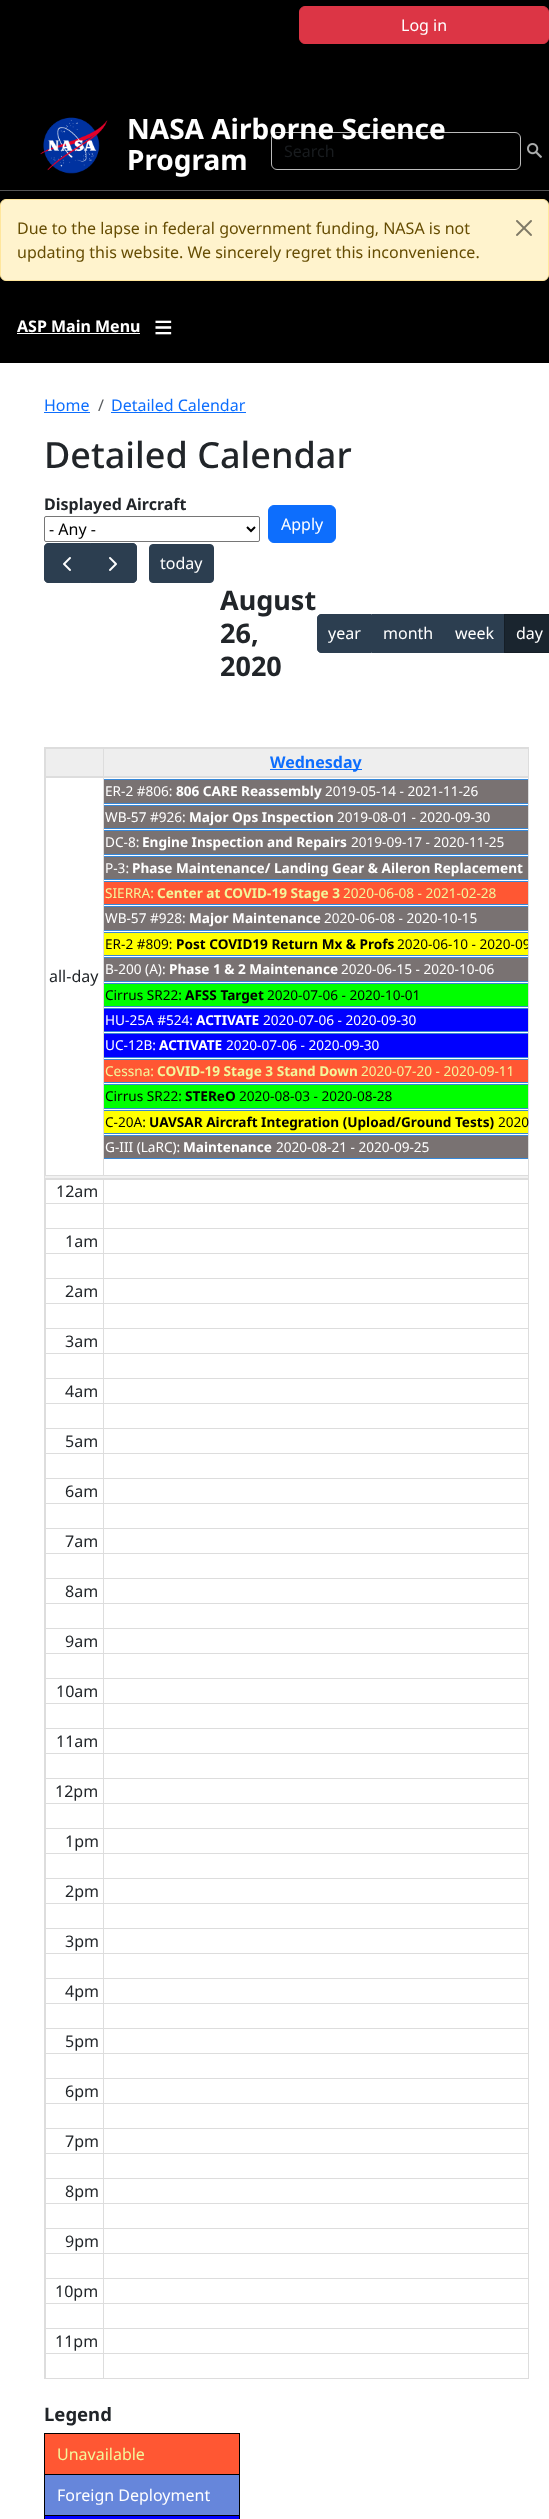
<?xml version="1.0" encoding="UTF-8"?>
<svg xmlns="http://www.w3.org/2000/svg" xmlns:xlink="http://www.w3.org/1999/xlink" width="549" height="2519">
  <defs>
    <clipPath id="clip1"><rect x="104" y="933" width="424" height="22" /></clipPath>
  </defs>
  <rect width="100%" height="100%" fill="#ffffff" />
  <rect width="549" height="190" fill="#000000" />
  <rect x="299.5" y="6.5" width="249" height="37" rx="5.5" fill="#dc3545" stroke="#dc3545" />
  <image x="40" y="117" width="68" height="57" xlink:href="image1.png" />
  <rect x="271.5" y="132.5" width="249" height="37" rx="5.5" fill="none" stroke="#bbbbbb" />
  <image x="527" y="143" width="15" height="15" xlink:href="image2.png" />
  <rect y="191" width="549" height="172" fill="#000000" />
  <rect y="190" width="549" height="1" fill="#555555" />
  <rect x="0.5" y="199.5" width="548" height="81" rx="5.5" fill="#fff3cd" stroke="#ffe69c" />
  <image x="516" y="220" width="16" height="16" xlink:href="image3.png" />
  <rect x="17" y="333" width="123" height="1" fill="#ffffff" />
  <rect x="44" y="412" width="46" height="1" fill="#0d6efd" />
  <rect x="111" y="412" width="135" height="1" fill="#0d6efd" />
  <rect x="44.5" y="516.5" width="215" height="25" rx="1.5" fill="none" stroke="#767676" />
  <path d="M 247 527 l 4 4 l 4 -4" fill="none" stroke="#000000" stroke-width="2" />
  <rect x="268.5" y="505.5" width="67" height="37" rx="5.5" fill="#0d6efd" stroke="#0d6efd" />
  <path d="M 48 543.5 h 42.5 v 39 h -42.5 c -2 0 -3.5 -1.5 -3.5 -3.5 v -32 c 0 -2 1.5 -3.5 3.5 -3.5 z" fill="#2c3e50" stroke="#2c3e50" />
  <image x="63" y="557" width="8" height="14" xlink:href="image4.png" />
  <path d="M 90.5 543.5 h 42.5 c 2 0 3.5 1.5 3.5 3.5 v 32 c 0 2 -1.5 3.5 -3.5 3.5 h -42.5 z" fill="#2c3e50" stroke="#2c3e50" />
  <image x="109" y="557" width="8" height="14" xlink:href="image5.png" />
  <rect x="149.5" y="544.5" width="64" height="38" rx="3.5" fill="#2c3e50" stroke="#2c3e50" />
  <path d="M 321 614.5 h 50.5 v 38 h -50.5 c -2 0 -3.5 -1.5 -3.5 -3.5 v -31 c 0 -2 1.5 -3.5 3.5 -3.5 z" fill="#2c3e50" stroke="#2c3e50" />
  <rect x="372" y="614" width="132" height="39" fill="#2c3e50" />
  <rect x="504.5" y="614.5" width="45" height="38" fill="#1a252f" stroke="#151e27" />
  <rect x="44" y="747" width="485" height="1" fill="#dddddd" />
  <rect x="44" y="747" width="1" height="1632" fill="#dddddd" />
  <rect x="46" y="749" width="57" height="27" fill="#eeeeee" />
  <rect x="103" y="748" width="425" height="1" fill="#dddddd" />
  <rect x="103" y="776" width="425" height="2" fill="#dddddd" />
  <rect x="103" y="748" width="1" height="29" fill="#dddddd" />
  <rect x="45" y="748" width="59" height="1" fill="#dddddd" />
  <rect x="45" y="776" width="59" height="1" fill="#dddddd" />
  <rect x="45" y="748" width="1" height="29" fill="#dddddd" />
  <rect x="104" y="749" width="424" height="27" fill="#eeeeee" />
  <rect x="270" y="769" width="92" height="1" fill="#0d6efd" />
  <rect x="528" y="748" width="1" height="1631" fill="#dddddd" />
  <rect x="45" y="1175" width="484" height="1" fill="#dddddd" />
  <rect x="103" y="777" width="1" height="398" fill="#dddddd" />
  <rect x="45" y="777" width="59" height="1" fill="#dddddd" />
  <rect x="45" y="777" width="1" height="398" fill="#dddddd" />
  <rect x="104" y="780" width="424" height="23" fill="#797272" />
  <rect x="104" y="779" width="424" height="1" fill="#3788d8" />
  <rect x="104" y="803" width="424" height="1" fill="#3788d8" />
  <rect x="104" y="806" width="424" height="22" fill="#797272" />
  <rect x="104" y="805" width="424" height="1" fill="#3788d8" />
  <rect x="104" y="828" width="424" height="1" fill="#3788d8" />
  <rect x="104" y="831" width="424" height="23" fill="#797272" />
  <rect x="104" y="830" width="424" height="1" fill="#3788d8" />
  <rect x="104" y="854" width="424" height="1" fill="#3788d8" />
  <rect x="104" y="857" width="424" height="22" fill="#797272" />
  <rect x="104" y="856" width="424" height="1" fill="#3788d8" />
  <rect x="104" y="879" width="424" height="1" fill="#3788d8" />
  <rect x="104" y="882" width="424" height="22" fill="#ff5733" />
  <rect x="104" y="881" width="424" height="1" fill="#3788d8" />
  <rect x="104" y="904" width="424" height="1" fill="#3788d8" />
  <rect x="104" y="907" width="424" height="23" fill="#797272" />
  <rect x="104" y="906" width="424" height="1" fill="#3788d8" />
  <rect x="104" y="930" width="424" height="1" fill="#3788d8" />
  <rect x="104" y="933" width="424" height="22" fill="#ffff00" />
  <rect x="104" y="932" width="424" height="1" fill="#3788d8" />
  <rect x="104" y="955" width="424" height="1" fill="#3788d8" />
  <rect x="104" y="958" width="424" height="23" fill="#797272" />
  <rect x="104" y="957" width="424" height="1" fill="#3788d8" />
  <rect x="104" y="981" width="424" height="1" fill="#3788d8" />
  <rect x="104" y="984" width="424" height="22" fill="#00ff00" />
  <rect x="104" y="983" width="424" height="1" fill="#3788d8" />
  <rect x="104" y="1006" width="424" height="1" fill="#3788d8" />
  <rect x="104" y="1009" width="424" height="22" fill="#0000ff" />
  <rect x="104" y="1008" width="424" height="1" fill="#3788d8" />
  <rect x="104" y="1031" width="424" height="1" fill="#3788d8" />
  <rect x="104" y="1034" width="424" height="23" fill="#0000ff" />
  <rect x="104" y="1033" width="424" height="1" fill="#3788d8" />
  <rect x="104" y="1057" width="424" height="1" fill="#3788d8" />
  <rect x="104" y="1060" width="424" height="22" fill="#ff5733" />
  <rect x="104" y="1059" width="424" height="1" fill="#3788d8" />
  <rect x="104" y="1082" width="424" height="1" fill="#3788d8" />
  <rect x="104" y="1085" width="424" height="23" fill="#00ff00" />
  <rect x="104" y="1084" width="424" height="1" fill="#3788d8" />
  <rect x="104" y="1108" width="424" height="1" fill="#3788d8" />
  <rect x="104" y="1111" width="424" height="22" fill="#ffff00" />
  <rect x="104" y="1110" width="424" height="1" fill="#3788d8" />
  <rect x="104" y="1133" width="424" height="1" fill="#3788d8" />
  <rect x="104" y="1136" width="424" height="22" fill="#797272" />
  <rect x="104" y="1135" width="424" height="1" fill="#3788d8" />
  <rect x="104" y="1158" width="424" height="1" fill="#3788d8" />
  <rect x="45" y="1176" width="483" height="2" fill="#f1f1f1" />
  <rect x="45" y="1178" width="484" height="1" fill="#dddddd" />
  <rect x="45" y="2378" width="484" height="1" fill="#dddddd" />
  <rect x="103" y="1179" width="425" height="1" fill="#dddddd" />
  <rect x="103" y="1179" width="1" height="1199" fill="#dddddd" />
  <rect x="45" y="1179" width="59" height="1" fill="#dddddd" />
  <rect x="45" y="1179" width="1" height="1199" fill="#dddddd" />
  <rect x="45" y="1203" width="483" height="1" fill="#dddddd" />
  <rect x="45" y="1228" width="483" height="1" fill="#dddddd" />
  <rect x="45" y="1253" width="483" height="1" fill="#dddddd" />
  <rect x="45" y="1278" width="483" height="1" fill="#dddddd" />
  <rect x="45" y="1303" width="483" height="1" fill="#dddddd" />
  <rect x="45" y="1328" width="483" height="1" fill="#dddddd" />
  <rect x="45" y="1353" width="483" height="1" fill="#dddddd" />
  <rect x="45" y="1378" width="483" height="1" fill="#dddddd" />
  <rect x="45" y="1403" width="483" height="1" fill="#dddddd" />
  <rect x="45" y="1428" width="483" height="1" fill="#dddddd" />
  <rect x="45" y="1453" width="483" height="1" fill="#dddddd" />
  <rect x="45" y="1478" width="483" height="1" fill="#dddddd" />
  <rect x="45" y="1503" width="483" height="1" fill="#dddddd" />
  <rect x="45" y="1528" width="483" height="1" fill="#dddddd" />
  <rect x="45" y="1553" width="483" height="1" fill="#dddddd" />
  <rect x="45" y="1578" width="483" height="1" fill="#dddddd" />
  <rect x="45" y="1603" width="483" height="1" fill="#dddddd" />
  <rect x="45" y="1628" width="483" height="1" fill="#dddddd" />
  <rect x="45" y="1653" width="483" height="1" fill="#dddddd" />
  <rect x="45" y="1678" width="483" height="1" fill="#dddddd" />
  <rect x="45" y="1703" width="483" height="1" fill="#dddddd" />
  <rect x="45" y="1728" width="483" height="1" fill="#dddddd" />
  <rect x="45" y="1753" width="483" height="1" fill="#dddddd" />
  <rect x="45" y="1778" width="483" height="1" fill="#dddddd" />
  <rect x="45" y="1803" width="483" height="1" fill="#dddddd" />
  <rect x="45" y="1828" width="483" height="1" fill="#dddddd" />
  <rect x="45" y="1853" width="483" height="1" fill="#dddddd" />
  <rect x="45" y="1878" width="483" height="1" fill="#dddddd" />
  <rect x="45" y="1903" width="483" height="1" fill="#dddddd" />
  <rect x="45" y="1928" width="483" height="1" fill="#dddddd" />
  <rect x="45" y="1953" width="483" height="1" fill="#dddddd" />
  <rect x="45" y="1978" width="483" height="1" fill="#dddddd" />
  <rect x="45" y="2003" width="483" height="1" fill="#dddddd" />
  <rect x="45" y="2028" width="483" height="1" fill="#dddddd" />
  <rect x="45" y="2053" width="483" height="1" fill="#dddddd" />
  <rect x="45" y="2078" width="483" height="1" fill="#dddddd" />
  <rect x="45" y="2103" width="483" height="1" fill="#dddddd" />
  <rect x="45" y="2128" width="483" height="1" fill="#dddddd" />
  <rect x="45" y="2153" width="483" height="1" fill="#dddddd" />
  <rect x="45" y="2178" width="483" height="1" fill="#dddddd" />
  <rect x="45" y="2203" width="483" height="1" fill="#dddddd" />
  <rect x="45" y="2228" width="483" height="1" fill="#dddddd" />
  <rect x="45" y="2253" width="483" height="1" fill="#dddddd" />
  <rect x="45" y="2278" width="483" height="1" fill="#dddddd" />
  <rect x="45" y="2303" width="483" height="1" fill="#dddddd" />
  <rect x="45" y="2328" width="483" height="1" fill="#dddddd" />
  <rect x="45" y="2353" width="483" height="1" fill="#dddddd" />
  <rect x="45" y="2434" width="194" height="40" fill="#ff5733" />
  <rect x="44" y="2433" width="196" height="1" fill="#000000" />
  <rect x="44" y="2474" width="196" height="1" fill="#000000" />
  <rect x="44" y="2515" width="196" height="1" fill="#000000" />
  <rect x="239" y="2515" width="1" height="4" fill="#000000" />
  <rect x="239" y="2474" width="1" height="42" fill="#000000" />
  <rect x="239" y="2433" width="1" height="42" fill="#000000" />
  <rect x="44" y="2515" width="1" height="4" fill="#000000" />
  <rect x="44" y="2474" width="1" height="42" fill="#000000" />
  <rect x="44" y="2433" width="1" height="42" fill="#000000" />
  <rect x="45" y="2475" width="194" height="40" fill="#6686db" />
  <rect x="45" y="2516" width="194" height="3" fill="#0000ff" />
  <text x="401" y="31" style="font-family: Noto Sans; font-size: 16px; fill: #ffffff">Log in</text>
  <text x="127" y="139" style="font-family: Noto Sans; font-size: 28px; font-weight: bold; fill: #ffffff">NASA Airborne Science</text>
  <text x="127" y="170" style="font-family: Noto Sans; font-size: 28px; font-weight: bold; fill: #ffffff">Program</text>
  <text x="284" y="157" style="font-family: Noto Sans; font-size: 16px; fill: #191c1f">Search</text>
  <text x="17" y="234" style="font-family: Noto Sans; font-size: 16px; fill: #664d03">Due to the lapse in federal government funding, NASA is not</text>
  <text x="17" y="258" style="font-family: Noto Sans; font-size: 16px; fill: #664d03">updating this website. We sincerely regret this inconvenience.</text>
  <text x="17" y="332" style="font-family: Noto Sans; font-size: 16px; font-weight: bold; fill: #ffffff">ASP Main Menu</text>
  <text x="154" y="338" style="font-family: Liberation Sans; font-size: 32px; font-weight: bold; fill: #ffffff">≡</text>
  <text x="44" y="411" style="font-family: Noto Sans; font-size: 16px; fill: #0d6efd">Home</text>
  <text x="98" y="411" style="font-family: Noto Sans; font-size: 16px; fill: #595c5f">/</text>
  <text x="111" y="411" style="font-family: Noto Sans; font-size: 16px; fill: #0d6efd">Detailed Calendar</text>
  <text x="44" y="468" style="font-family: Noto Sans; font-size: 36px; font-weight: 500; fill: #212529">Detailed Calendar</text>
  <text x="44" y="510" style="font-family: Noto Sans; font-size: 16px; font-weight: bold; fill: #212529">Displayed Aircraft</text>
  <text x="49" y="535" style="font-family: Noto Sans; font-size: 16px; fill: #000000">- Any -</text>
  <text x="281" y="530" style="font-family: Noto Sans; font-size: 16px; fill: #ffffff">Apply</text>
  <text x="160" y="569" style="font-family: Noto Sans; font-size: 16px; fill: #ffffff">today</text>
  <text x="220" y="610" style="font-family: Noto Sans; font-size: 27px; font-weight: bold; fill: #212529">August</text>
  <text x="220" y="643" style="font-family: Noto Sans; font-size: 27px; font-weight: bold; fill: #212529">26,</text>
  <text x="220" y="676" style="font-family: Noto Sans; font-size: 27px; font-weight: bold; fill: #212529">2020</text>
  <text x="328" y="639" style="font-family: Noto Sans; font-size: 16px; fill: #ffffff">year</text>
  <text x="383" y="639" style="font-family: Noto Sans; font-size: 16px; fill: #ffffff">month</text>
  <text x="455" y="639" style="font-family: Noto Sans; font-size: 16px; fill: #ffffff">week</text>
  <text x="516" y="639" style="font-family: Noto Sans; font-size: 16px; fill: #ffffff">day</text>
  <text x="270" y="768" style="font-family: Noto Sans; font-size: 16px; font-weight: bold; fill: #0d6efd">Wednesday</text>
  <text x="49" y="982" style="font-family: Noto Sans; font-size: 16px; fill: #212529">all-day</text>
  <text x="105" y="796" style="font-family: Noto Sans; font-size: 13.6px; fill: #ffffff">ER-2 #806:</text>
  <text x="176" y="796" style="font-family: Noto Sans; font-size: 13.6px; font-weight: bold; fill: #ffffff">806 CARE Reassembly</text>
  <text x="325" y="796" style="font-family: Noto Sans; font-size: 13.6px; fill: #ffffff">2019-05-14 - 2021-11-26</text>
  <text x="105" y="822" style="font-family: Noto Sans; font-size: 13.6px; fill: #ffffff">WB-57 #926:</text>
  <text x="189" y="822" style="font-family: Noto Sans; font-size: 13.6px; font-weight: bold; fill: #ffffff">Major Ops Inspection</text>
  <text x="337" y="822" style="font-family: Noto Sans; font-size: 13.6px; fill: #ffffff">2019-08-01 - 2020-09-30</text>
  <text x="105" y="847" style="font-family: Noto Sans; font-size: 13.6px; fill: #ffffff">DC-8:</text>
  <text x="142" y="847" style="font-family: Noto Sans; font-size: 13.6px; font-weight: bold; fill: #ffffff">Engine Inspection and Repairs</text>
  <text x="351" y="847" style="font-family: Noto Sans; font-size: 13.6px; fill: #ffffff">2019-09-17 - 2020-11-25</text>
  <text x="105" y="873" style="font-family: Noto Sans; font-size: 13.6px; fill: #ffffff">P-3:</text>
  <text x="132" y="873" style="font-family: Noto Sans; font-size: 13.6px; font-weight: bold; fill: #ffffff">Phase Maintenance/ Landing Gear &amp; Aileron Replacement</text>
  <text x="105" y="898" style="font-family: Noto Sans; font-size: 13.6px; fill: #f3f69b">SIERRA:</text>
  <text x="157" y="898" style="font-family: Noto Sans; font-size: 13.6px; font-weight: bold; fill: #f3f69b">Center at COVID-19 Stage 3</text>
  <text x="343" y="898" style="font-family: Noto Sans; font-size: 13.6px; fill: #f3f69b">2020-06-08 - 2021-02-28</text>
  <text x="105" y="923" style="font-family: Noto Sans; font-size: 13.6px; fill: #ffffff">WB-57 #928:</text>
  <text x="189" y="923" style="font-family: Noto Sans; font-size: 13.6px; font-weight: bold; fill: #ffffff">Major Maintenance</text>
  <text x="324" y="923" style="font-family: Noto Sans; font-size: 13.6px; fill: #ffffff">2020-06-08 - 2020-10-15</text>
  <text x="105" y="949" style="font-family: Noto Sans; font-size: 13.6px; fill: #000000">ER-2 #809:</text>
  <text x="176" y="949" style="font-family: Noto Sans; font-size: 13.6px; font-weight: bold; fill: #000000">Post COVID19 Return Mx &amp; Profs</text>
  <g clip-path="url(#clip1)">
    <text x="397" y="949" style="font-family: Noto Sans; font-size: 13.6px; fill: #000000">2020-06-10 - 2020-09</text>
  </g>
  <text x="105" y="974" style="font-family: Noto Sans; font-size: 13.6px; fill: #ffffff">B-200 (A):</text>
  <text x="169" y="974" style="font-family: Noto Sans; font-size: 13.6px; font-weight: bold; fill: #ffffff">Phase 1 &amp; 2 Maintenance</text>
  <text x="341" y="974" style="font-family: Noto Sans; font-size: 13.6px; fill: #ffffff">2020-06-15 - 2020-10-06</text>
  <text x="105" y="1000" style="font-family: Noto Sans; font-size: 13.6px; fill: #000000">Cirrus SR22:</text>
  <text x="185" y="1000" style="font-family: Noto Sans; font-size: 13.6px; font-weight: bold; fill: #000000">AFSS Target</text>
  <text x="267" y="1000" style="font-family: Noto Sans; font-size: 13.6px; fill: #000000">2020-07-06 - 2020-10-01</text>
  <text x="105" y="1025" style="font-family: Noto Sans; font-size: 13.6px; fill: #ffffff">HU-25A #524:</text>
  <text x="196" y="1025" style="font-family: Noto Sans; font-size: 13.6px; font-weight: bold; fill: #ffffff">ACTIVATE</text>
  <text x="263" y="1025" style="font-family: Noto Sans; font-size: 13.6px; fill: #ffffff">2020-07-06 - 2020-09-30</text>
  <text x="105" y="1050" style="font-family: Noto Sans; font-size: 13.6px; fill: #ffffff">UC-12B:</text>
  <text x="159" y="1050" style="font-family: Noto Sans; font-size: 13.6px; font-weight: bold; fill: #ffffff">ACTIVATE</text>
  <text x="226" y="1050" style="font-family: Noto Sans; font-size: 13.6px; fill: #ffffff">2020-07-06 - 2020-09-30</text>
  <text x="105" y="1076" style="font-family: Noto Sans; font-size: 13.6px; fill: #f3f69b">Cessna:</text>
  <text x="157" y="1076" style="font-family: Noto Sans; font-size: 13.6px; font-weight: bold; fill: #f3f69b">COVID-19 Stage 3 Stand Down</text>
  <text x="361" y="1076" style="font-family: Noto Sans; font-size: 13.6px; fill: #f3f69b">2020-07-20 - 2020-09-11</text>
  <text x="105" y="1101" style="font-family: Noto Sans; font-size: 13.6px; fill: #000000">Cirrus SR22:</text>
  <text x="185" y="1101" style="font-family: Noto Sans; font-size: 13.6px; font-weight: bold; fill: #000000">STEReO</text>
  <text x="239" y="1101" style="font-family: Noto Sans; font-size: 13.6px; fill: #000000">2020-08-03 - 2020-08-28</text>
  <text x="105" y="1127" style="font-family: Noto Sans; font-size: 13.6px; fill: #000000">C-20A:</text>
  <text x="149" y="1127" style="font-family: Noto Sans; font-size: 13.6px; font-weight: bold; fill: #000000">UAVSAR Aircraft Integration (Upload/Ground Tests)</text>
  <text x="498" y="1127" style="font-family: Noto Sans; font-size: 13.6px; fill: #000000">2020</text>
  <text x="105" y="1152" style="font-family: Noto Sans; font-size: 13.6px; fill: #ffffff">G-III (LaRC):</text>
  <text x="183" y="1152" style="font-family: Noto Sans; font-size: 13.6px; font-weight: bold; fill: #ffffff">Maintenance</text>
  <text x="276" y="1152" style="font-family: Noto Sans; font-size: 13.6px; fill: #ffffff">2020-08-21 - 2020-09-25</text>
  <text x="56" y="1197" style="font-family: Noto Sans; font-size: 16px; fill: #212529">12am</text>
  <text x="65" y="1247" style="font-family: Noto Sans; font-size: 16px; fill: #212529">1am</text>
  <text x="65" y="1297" style="font-family: Noto Sans; font-size: 16px; fill: #212529">2am</text>
  <text x="65" y="1347" style="font-family: Noto Sans; font-size: 16px; fill: #212529">3am</text>
  <text x="65" y="1397" style="font-family: Noto Sans; font-size: 16px; fill: #212529">4am</text>
  <text x="65" y="1447" style="font-family: Noto Sans; font-size: 16px; fill: #212529">5am</text>
  <text x="65" y="1497" style="font-family: Noto Sans; font-size: 16px; fill: #212529">6am</text>
  <text x="65" y="1547" style="font-family: Noto Sans; font-size: 16px; fill: #212529">7am</text>
  <text x="65" y="1597" style="font-family: Noto Sans; font-size: 16px; fill: #212529">8am</text>
  <text x="65" y="1647" style="font-family: Noto Sans; font-size: 16px; fill: #212529">9am</text>
  <text x="56" y="1697" style="font-family: Noto Sans; font-size: 16px; fill: #212529">10am</text>
  <text x="56" y="1747" style="font-family: Noto Sans; font-size: 16px; fill: #212529">11am</text>
  <text x="55" y="1797" style="font-family: Noto Sans; font-size: 16px; fill: #212529">12pm</text>
  <text x="65" y="1847" style="font-family: Noto Sans; font-size: 16px; fill: #212529">1pm</text>
  <text x="65" y="1897" style="font-family: Noto Sans; font-size: 16px; fill: #212529">2pm</text>
  <text x="65" y="1947" style="font-family: Noto Sans; font-size: 16px; fill: #212529">3pm</text>
  <text x="65" y="1997" style="font-family: Noto Sans; font-size: 16px; fill: #212529">4pm</text>
  <text x="65" y="2047" style="font-family: Noto Sans; font-size: 16px; fill: #212529">5pm</text>
  <text x="65" y="2097" style="font-family: Noto Sans; font-size: 16px; fill: #212529">6pm</text>
  <text x="65" y="2147" style="font-family: Noto Sans; font-size: 16px; fill: #212529">7pm</text>
  <text x="65" y="2197" style="font-family: Noto Sans; font-size: 16px; fill: #212529">8pm</text>
  <text x="65" y="2247" style="font-family: Noto Sans; font-size: 16px; fill: #212529">9pm</text>
  <text x="55" y="2297" style="font-family: Noto Sans; font-size: 16px; fill: #212529">10pm</text>
  <text x="55" y="2347" style="font-family: Noto Sans; font-size: 16px; fill: #212529">11pm</text>
  <text x="44" y="2421" style="font-family: Noto Sans; font-size: 18.5px; font-weight: bold; fill: #212529">Legend</text>
  <text x="57" y="2460" style="font-family: Noto Sans; font-size: 16px; fill: #f3f69b">Unavailable</text>
  <text x="57" y="2501" style="font-family: Noto Sans; font-size: 16px; fill: #ffffff">Foreign Deployment</text>
</svg>
